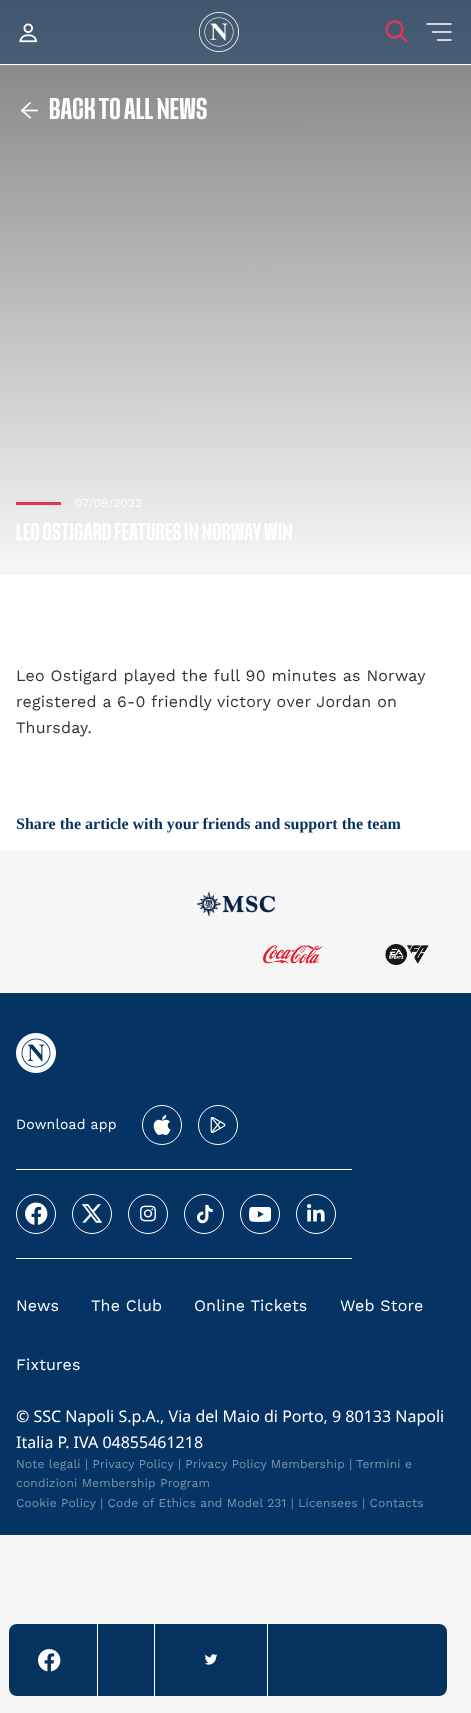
<?xml version="1.0" encoding="UTF-8"?>
<svg xmlns="http://www.w3.org/2000/svg" xmlns:xlink="http://www.w3.org/1999/xlink" width="471" height="1713">
  <defs>
    <linearGradient id="g1" gradientUnits="userSpaceOnUse" x1="235" y1="0" x2="236" y2="575"><stop offset="0" stop-color="#41576e" /><stop offset="1" stop-color="#7f95ab" /></linearGradient>
    <linearGradient id="g2" gradientUnits="userSpaceOnUse" x1="235" y1="0" x2="236" y2="575"><stop offset="0" stop-color="#7c7c7c" /><stop offset="1" stop-color="#f7f7f7" /></linearGradient>
  </defs>
  <rect width="100%" height="100%" fill="#f6f6f6" />
  <rect y="64" width="471" height="1" fill="#ffffff" />
  <rect width="471" height="64" fill="url(#g1)" />
  <image x="19" y="23" width="19" height="20" xlink:href="image1.png" />
  <image x="199" y="12" width="40" height="40" xlink:href="image2.png" />
  <path d="M 394.5 37.5 c 10.5 0 10.5 -16 0 -16 c -10.5 0 -10.5 16 0 16 z m 12.5 4.5 l -7 -7" fill="none" stroke="#e33555" stroke-width="2.3" stroke-linejoin="round" />
  <path d="M 451 24 h -24 m 5.5 8 h 18.5 m 0 8 h -13.5" fill="none" stroke="#ffffff" stroke-width="1.5" stroke-linecap="round" stroke-linejoin="round" />
  <rect y="65" width="471" height="494" fill="url(#g2)" />
  <path d="M 22.5 110.5 h 14.5" fill="none" stroke="#ffffff" stroke-width="1.7" stroke-linecap="square" stroke-linejoin="round" />
  <path d="M 30 103 l -8 7.5 l 8 7" fill="none" stroke="#ffffff" stroke-width="1.7" stroke-linecap="square" />
  <rect x="16" y="502" width="45" height="3" fill="#e33555" />
  <rect y="575" width="471" height="276" fill="#ffffff" />
  <rect x="9" y="1624" width="438" height="72" rx="8" fill="#06325f" />
  <rect x="97" y="1624" width="1" height="72" fill="#ffffff" />
  <image x="38" y="1649" width="23" height="23" xlink:href="image3.png" />
  <rect x="154" y="1624" width="1" height="72" fill="#ffffff" />
  <rect x="267" y="1624" width="1" height="72" fill="#ffffff" />
  <image x="204" y="1654" width="14" height="11" xlink:href="image4.png" />
  <image x="196" y="891" width="79" height="26" xlink:href="image5.png" />
  <image x="263" y="945" width="60" height="19" xlink:href="image6.png" />
  <image x="385" y="944" width="44" height="21" xlink:href="image7.png" />
  <rect y="993" width="471" height="542" fill="#053464" />
  <image x="16" y="1033" width="40" height="40" xlink:href="image8.png" />
  <circle cx="162" cy="1125" r="19.5" fill="none" stroke="#ffffff" />
  <image x="153" y="1115" width="18" height="20" xlink:href="image9.png" />
  <circle cx="218" cy="1125" r="19.5" fill="none" stroke="#ffffff" />
  <image x="210" y="1116" width="16" height="18" xlink:href="image10.png" />
  <rect x="16" y="1169" width="336" height="1" fill="#ffffff" />
  <rect x="16" y="1258" width="336" height="1" fill="#ffffff" />
  <circle cx="36" cy="1214" r="19.5" fill="none" stroke="#ffffff" />
  <image x="25" y="1202" width="23" height="23" xlink:href="image11.png" />
  <circle cx="92" cy="1214" r="19.5" fill="none" stroke="#ffffff" />
  <image x="81" y="1204" width="22" height="19" xlink:href="image12.png" />
  <circle cx="148" cy="1214" r="19.5" fill="none" stroke="#ffffff" />
  <image x="140" y="1205" width="16" height="17" xlink:href="image13.png" />
  <circle cx="204" cy="1214" r="19.5" fill="none" stroke="#ffffff" />
  <image x="196" y="1204" width="17" height="20" xlink:href="image14.png" />
  <circle cx="260" cy="1214" r="19.5" fill="none" stroke="#ffffff" />
  <image x="249" y="1207" width="22" height="15" xlink:href="image15.png" />
  <circle cx="316" cy="1214" r="19.5" fill="none" stroke="#ffffff" />
  <image x="307" y="1204" width="18" height="18" xlink:href="image16.png" />
  <text x="49" y="119" style="font-family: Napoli; font-size: 30px; letter-spacing: 0.25px; fill: #ffffff">BACK TO ALL NEWS</text>
  <text x="75" y="507" style="font-family: Work Sans; font-size: 12px; fill: #ffffff">07/09/2023</text>
  <text x="16" y="540" style="font-family: Napoli; font-size: 24px; letter-spacing: 0.25px; fill: #ffffff">LEO OSTIGARD FEATURES IN NORWAY WIN</text>
  <text x="16" y="681" style="font-family: Work Sans; font-size: 16px; letter-spacing: 0.25px; fill: #333333">Leo Ostigard played the full 90 minutes as Norway</text>
  <text x="16" y="707" style="font-family: Work Sans; font-size: 16px; letter-spacing: 0.25px; fill: #333333">registered a 6-0 friendly victory over Jordan on</text>
  <text x="16" y="733" style="font-family: Work Sans; font-size: 16px; letter-spacing: 0.25px; fill: #333333">Thursday.</text>
  <text x="16" y="829" style="font-family: Liberation Serif; font-size: 16px; font-weight: bold; fill: #06325f">Share the article with your friends and support the team</text>
  <text x="16" y="1129" style="font-family: Work Sans; font-size: 14px; letter-spacing: 0.2px; fill: #ffffff">Download app</text>
  <text x="16" y="1311" style="font-family: Work Sans; font-size: 16px; letter-spacing: 0.2px; fill: #ffffff">News</text>
  <text x="91" y="1311" style="font-family: Work Sans; font-size: 16px; letter-spacing: 0.2px; fill: #ffffff">The Club</text>
  <text x="194" y="1311" style="font-family: Work Sans; font-size: 16px; letter-spacing: 0.2px; fill: #ffffff">Online Tickets</text>
  <text x="340" y="1311" style="font-family: Work Sans; font-size: 16px; letter-spacing: 0.2px; fill: #ffffff">Web Store</text>
  <text x="16" y="1370" style="font-family: Work Sans; font-size: 16px; letter-spacing: 0.2px; fill: #ffffff">Fixtures</text>
  <text x="16" y="1422" style="font-family: Noto Sans; font-size: 16px; fill: #ffffff">© SSC Napoli S.p.A., Via del Maio di Porto, 9 80133 Napoli</text>
  <text x="16" y="1448" style="font-family: Noto Sans; font-size: 16px; fill: #ffffff">Italia P. IVA 04855461218</text>
  <text x="16" y="1468" style="font-family: Work Sans; font-size: 12px; letter-spacing: 0.2px; fill: #7d95ad">Note legali | Privacy Policy | Privacy Policy Membership | Termini e</text>
  <text x="16" y="1487" style="font-family: Work Sans; font-size: 12px; letter-spacing: 0.2px; fill: #7d95ad">condizioni Membership Program</text>
  <text x="16" y="1507" style="font-family: Work Sans; font-size: 12px; letter-spacing: 0.2px; fill: #7d95ad">Cookie Policy | Code of Ethics and Model 231 | Licensees | Contacts</text>
</svg>
